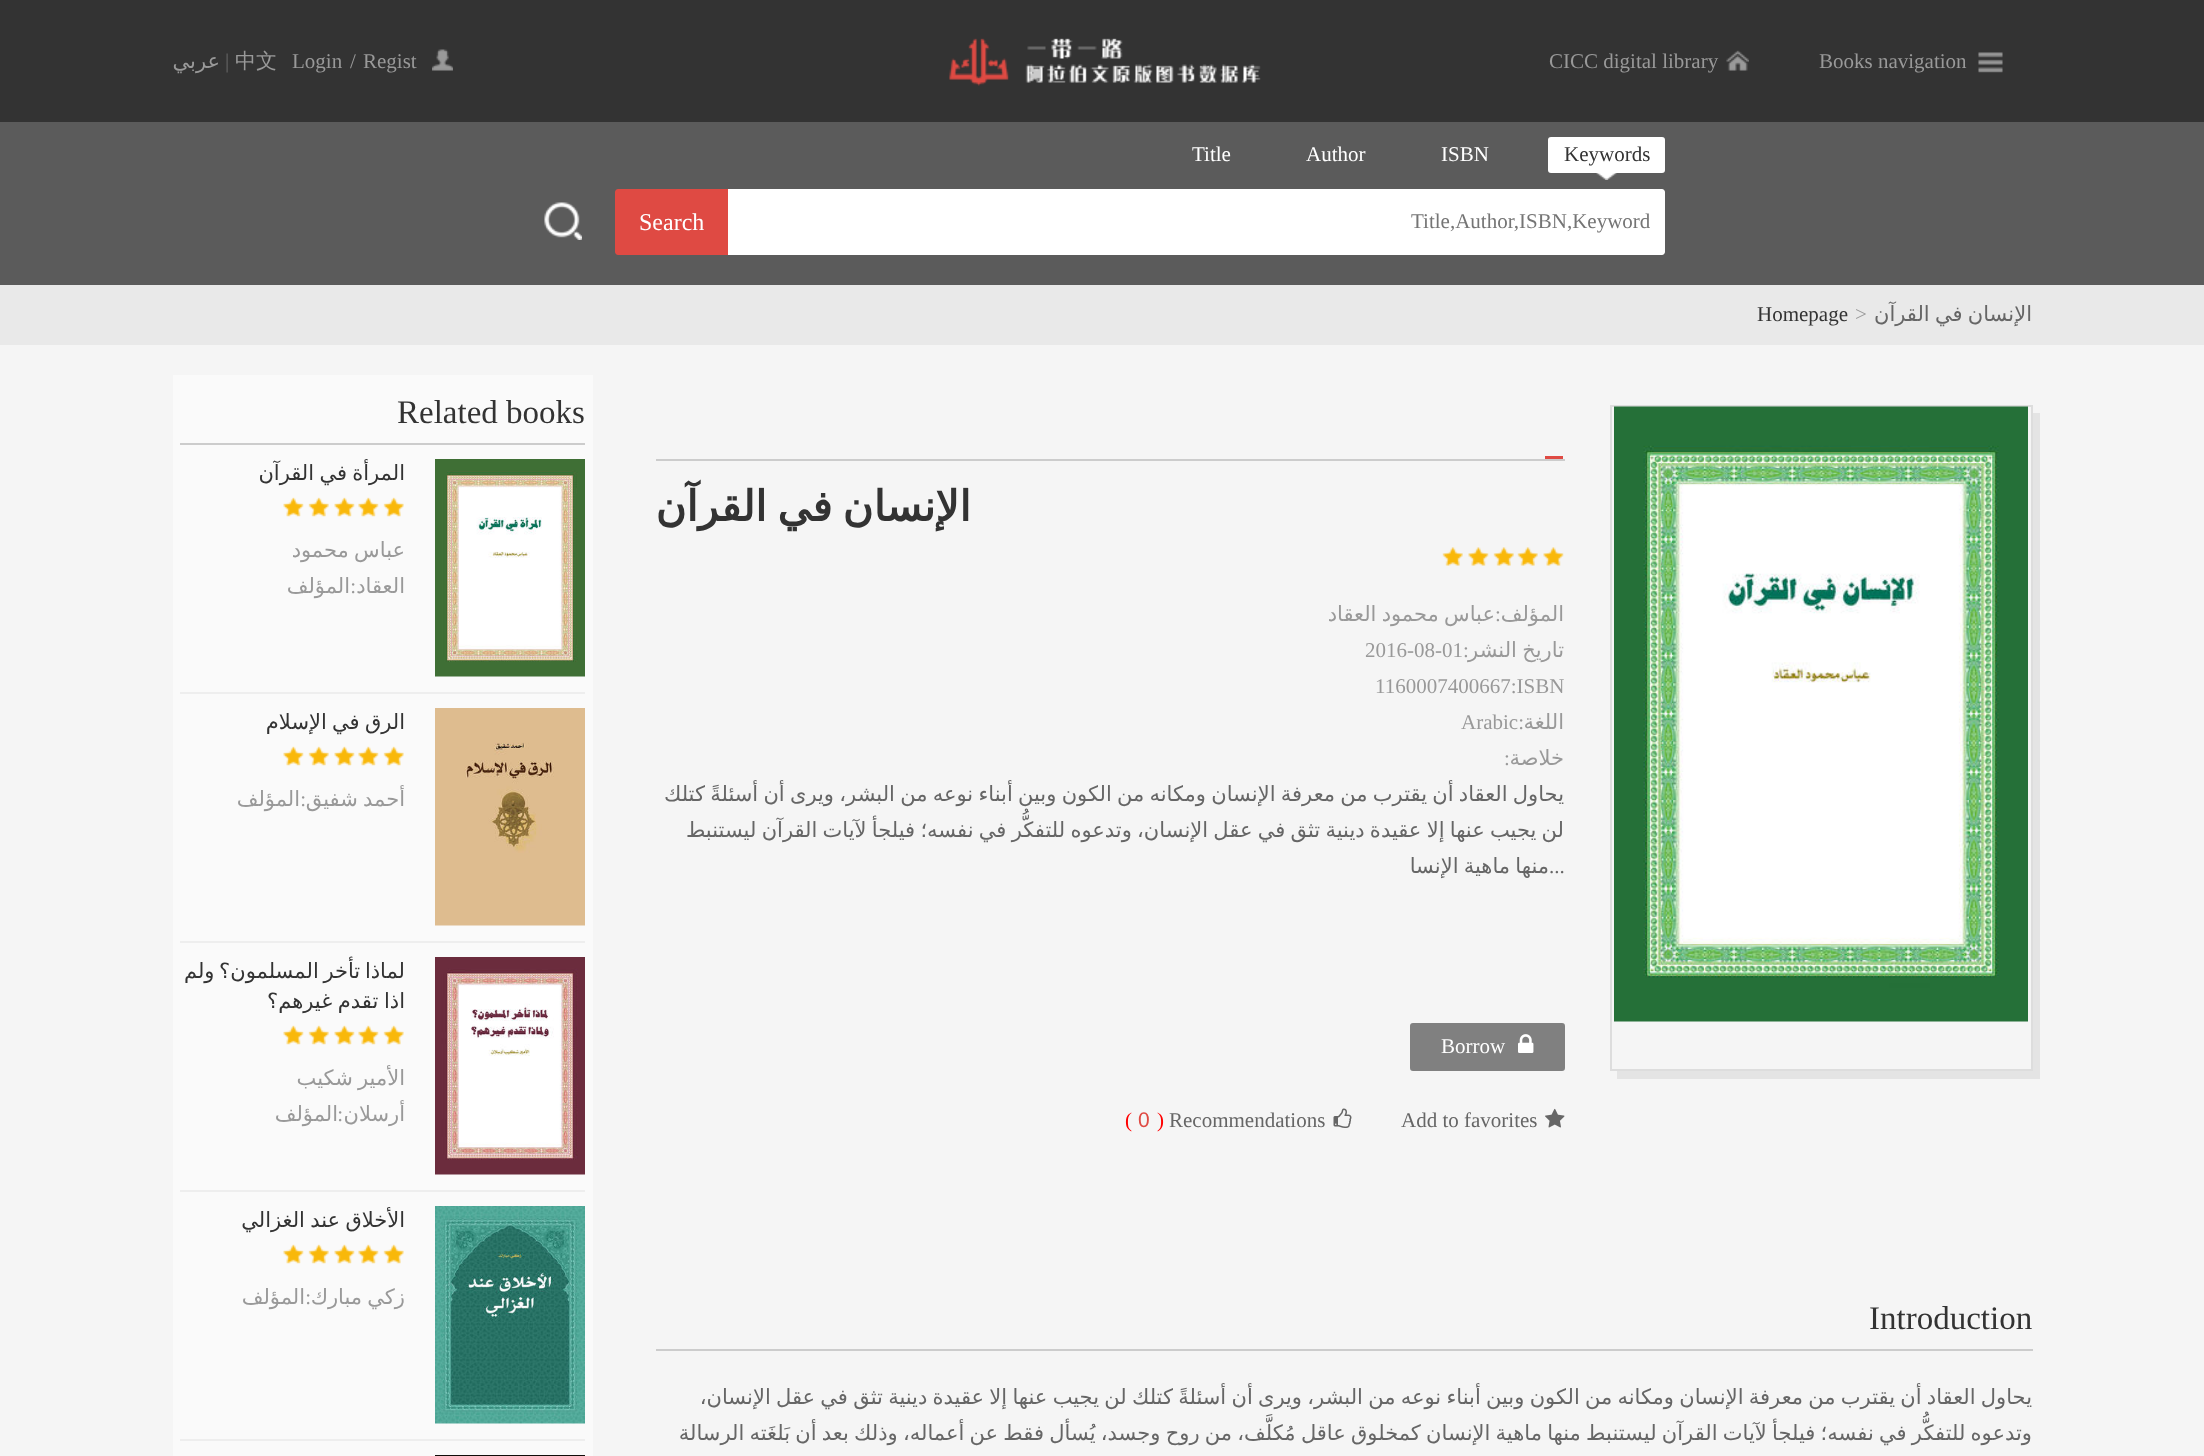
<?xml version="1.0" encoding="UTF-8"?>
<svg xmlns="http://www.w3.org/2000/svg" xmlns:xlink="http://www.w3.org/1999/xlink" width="2204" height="1456">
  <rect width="100%" height="100%" fill="#f5f5f5" />
  <rect width="2204" height="122" fill="#333333" />
  <image x="1978" y="52" width="25" height="21" xlink:href="image1.png" />
  <image x="1726" y="50" width="23" height="21" xlink:href="image2.png" />
  <image x="949" y="38" width="312" height="48" xlink:href="image3.png" />
  <image x="432" y="49" width="21" height="22" xlink:href="image4.png" />
  <rect y="122" width="2204" height="163" fill="#5b5b5b" />
  <rect x="1548" y="137" width="117" height="36" rx="3" fill="#ffffff" />
  <image x="1596" y="173" width="21" height="7" xlink:href="image5.png" />
  <path d="M 728 189 h 934 c 1.5 0 3 1.5 3 3 v 60 c 0 1.5 -1.5 3 -3 3 h -934 z" fill="#ffffff" />
  <path d="M 618 189 h 110 v 66 h -110 c -1.5 0 -3 -1.5 -3 -3 v -60 c 0 -1.5 1.5 -3 3 -3 z" fill="#df4a43" />
  <image x="544" y="202" width="38" height="38" xlink:href="image6.png" />
  <rect y="285" width="2204" height="60" fill="#e9e9e9" />
  <path d="M 1617 1071 v 8 h 423 v -666 h -8 v 658 z" fill="#e4e4e4" />
  <rect x="1611" y="406" width="421" height="664" fill="none" stroke="#dddddd" stroke-width="2" />
  <image x="1614" y="406" width="414" height="616" xlink:href="image7.png" />
  <rect x="656" y="459" width="909" height="2" fill="#cccccc" />
  <rect x="1545" y="456" width="18" height="3" fill="#df4a43" />
  <image x="1442" y="547" width="122" height="19" xlink:href="image8.png" />
  <rect x="1411" y="1024" width="153" height="46" rx="2" fill="#808080" stroke="#808080" stroke-width="2" />
  <image x="1518" y="1034" width="16" height="19" xlink:href="image9.png" />
  <image x="1545" y="1108" width="20" height="20" xlink:href="image10.png" />
  <image x="1333" y="1108" width="19" height="20" xlink:href="image11.png" />
  <rect x="656" y="1349" width="1377" height="2" fill="#cccccc" />
  <rect x="173" y="375" width="420" height="1081" fill="#fafafa" />
  <rect x="180" y="443" width="405" height="2" fill="#cccccc" />
  <rect x="180" y="692" width="405" height="2" fill="#eeeeee" />
  <image x="435" y="459" width="150" height="218" xlink:href="image12.png" />
  <image x="283" y="497" width="121" height="20" xlink:href="image13.png" />
  <rect x="180" y="941" width="405" height="2" fill="#eeeeee" />
  <image x="435" y="708" width="150" height="218" xlink:href="image14.png" />
  <image x="283" y="746" width="121" height="20" xlink:href="image13.png" />
  <rect x="180" y="1190" width="405" height="2" fill="#eeeeee" />
  <image x="435" y="957" width="150" height="218" xlink:href="image15.png" />
  <image x="283" y="1025" width="121" height="20" xlink:href="image13.png" />
  <rect x="180" y="1439" width="405" height="2" fill="#eeeeee" />
  <image x="435" y="1206" width="150" height="218" xlink:href="image16.png" />
  <image x="283" y="1244" width="121" height="20" xlink:href="image13.png" />
  <rect x="435" y="1455" width="150" height="1" fill="#100c09" />
  <text x="1819" y="68" style="font-family: Liberation Serif; font-size: 21px; fill: #999999">Books navigation</text>
  <text x="1549" y="68" style="font-family: Liberation Serif; font-size: 21px; fill: #999999">CICC digital library</text>
  <text x="363" y="68" style="font-family: Liberation Serif; font-size: 21px; fill: #999999">Regist</text>
  <text x="350" y="68" style="font-family: Liberation Serif; font-size: 21px; fill: #999999">/</text>
  <text x="292" y="68" style="font-family: Liberation Serif; font-size: 21px; fill: #999999">Login</text>
  <text x="235" y="68" style="font-family: WenQuanYi Zen Hei; font-size: 21px; font-weight: 500; fill: #999999">中文</text>
  <text x="225" y="68" style="font-family: Liberation Serif; font-size: 21px; fill: #666666">|</text>
  <text x="220" y="68" style="font-family: DejaVu Sans; font-size: 21px; direction: rtl; fill: #999999">عربي</text>
  <text x="1564" y="161" style="font-family: Liberation Serif; font-size: 21px; fill: #333333">Keywords</text>
  <text x="1441" y="161" style="font-family: Liberation Serif; font-size: 21px; fill: #ffffff">ISBN</text>
  <text x="1306" y="161" style="font-family: Liberation Serif; font-size: 21px; fill: #ffffff">Author</text>
  <text x="1192" y="161" style="font-family: Liberation Serif; font-size: 21px; fill: #ffffff">Title</text>
  <text x="1411" y="228" style="font-family: Liberation Serif; font-size: 21px; fill: #757575">Title,Author,ISBN,Keyword</text>
  <text x="639" y="230" style="font-family: Liberation Serif; font-size: 24px; fill: #ffffff">Search</text>
  <text x="2032" y="321" word-spacing="-1.4" style="font-family: DejaVu Sans; font-size: 21px; direction: rtl; fill: #666666">الإنسان في القرآن</text>
  <text x="1855" y="321" style="font-family: Liberation Serif; font-size: 21px; fill: #999999">&gt;</text>
  <text x="1757" y="321" style="font-family: Liberation Serif; font-size: 21px; fill: #333333">Homepage</text>
  <text x="971" y="521" word-spacing="-3" style="font-family: DejaVu Sans; font-size: 42px; font-weight: bold; direction: rtl; fill: #333333">الإنسان في القرآن</text>
  <text x="1564" y="621" style="font-family: DejaVu Sans; font-size: 21px; direction: rtl; fill: #999999">المؤلف</text>
  <text x="1495" y="621" style="font-family: Liberation Serif; font-size: 21px; fill: #999999">:</text>
  <text x="1495" y="621" word-spacing="-1.4" style="font-family: DejaVu Sans; font-size: 21px; direction: rtl; fill: #999999">عباس محمود العقاد</text>
  <text x="1564" y="657" word-spacing="-1.4" style="font-family: DejaVu Sans; font-size: 21px; direction: rtl; fill: #999999">تاريخ النشر</text>
  <text x="1365" y="657" style="font-family: Liberation Serif; font-size: 21px; fill: #999999">2016-08-01:</text>
  <text x="1375" y="693" style="font-family: Liberation Serif; font-size: 21px; fill: #999999">1160007400667:ISBN</text>
  <text x="1564" y="729" style="font-family: DejaVu Sans; font-size: 21px; direction: rtl; fill: #999999">اللغة</text>
  <text x="1461" y="729" style="font-family: Liberation Serif; font-size: 21px; fill: #999999">Arabic:</text>
  <text x="1564" y="765" style="font-family: DejaVu Sans; font-size: 21px; direction: rtl; fill: #999999">خلاصة</text>
  <text x="1504" y="765" style="font-family: Liberation Serif; font-size: 21px; fill: #999999">:</text>
  <text x="1564" y="801" word-spacing="-1.4" style="font-family: DejaVu Sans; font-size: 21px; direction: rtl; fill: #666666">يحاول العقاد أن يقترب من معرفة الإنسان ومكانه من الكون وبين أبناء نوعه من البشر، ويرى أن أسئلةً كتلك</text>
  <text x="1564" y="837" word-spacing="-1.4" style="font-family: DejaVu Sans; font-size: 21px; direction: rtl; fill: #666666">لن يجيب عنها إلا عقيدة دينية تثق في عقل الإنسان، وتدعوه للتفكُّر في نفسه؛ فيلجأ لآيات القرآن ليستنبط</text>
  <text x="1549" y="873" style="font-family: Liberation Serif; font-size: 21px; fill: #666666">...</text>
  <text x="1549" y="873" word-spacing="-1.4" style="font-family: DejaVu Sans; font-size: 21px; direction: rtl; fill: #666666">منها ماهية الإنسا</text>
  <text x="1441" y="1053" style="font-family: Liberation Serif; font-size: 21px; fill: #ffffff">Borrow</text>
  <text x="1401" y="1127" style="font-family: Liberation Serif; font-size: 21px; fill: #666666">Add to favorites</text>
  <text x="1169" y="1127" style="font-family: Liberation Serif; font-size: 21px; fill: #666666">Recommendations</text>
  <text x="1157" y="1127" style="font-family: Liberation Serif; font-size: 21px; fill: #ff0000">)</text>
  <text x="1138" y="1127" style="font-family: Liberation Sans; font-size: 21px; fill: #df4a43">0</text>
  <text x="1125" y="1127" style="font-family: Liberation Serif; font-size: 21px; fill: #ff0000">(</text>
  <text x="1869" y="1329" style="font-family: Liberation Serif; font-size: 33px; fill: #333333">Introduction</text>
  <text x="2032" y="1404" word-spacing="-1.4" style="font-family: DejaVu Sans; font-size: 21px; direction: rtl; fill: #666666">يحاول العقاد أن يقترب من معرفة الإنسان ومكانه من الكون وبين أبناء نوعه من البشر، ويرى أن أسئلةً كتلك لن يجيب عنها إلا عقيدة دينية تثق في عقل الإنسان،</text>
  <text x="2032" y="1440" word-spacing="-1.4" style="font-family: DejaVu Sans; font-size: 21px; direction: rtl; fill: #666666">وتدعوه للتفكُّر في نفسه؛ فيلجأ لآيات القرآن ليستنبط منها ماهية الإنسان كمخلوق عاقل مُكلَّف، من روح وجسد، يُسأل فقط عن أعماله، وذلك بعد أن بَلغَته الرسالة</text>
  <text x="397" y="423" style="font-family: Liberation Serif; font-size: 33px; fill: #333333">Related books</text>
  <text x="405" y="480" word-spacing="-1.4" style="font-family: DejaVu Sans; font-size: 21px; direction: rtl; fill: #333333">المرأة في القرآن</text>
  <text x="405" y="557" word-spacing="-1.4" style="font-family: DejaVu Sans; font-size: 21px; direction: rtl; fill: #999999">عباس محمود</text>
  <text x="405" y="593" style="font-family: DejaVu Sans; font-size: 21px; direction: rtl; fill: #999999">العقاد</text>
  <text x="356" y="593" style="font-family: Liberation Serif; font-size: 21px; direction: rtl; fill: #999999">:</text>
  <text x="350" y="593" style="font-family: DejaVu Sans; font-size: 21px; direction: rtl; fill: #999999">المؤلف</text>
  <text x="405" y="729" word-spacing="-1.4" style="font-family: DejaVu Sans; font-size: 21px; direction: rtl; fill: #333333">الرق في الإسلام</text>
  <text x="405" y="806" word-spacing="-1.4" style="font-family: DejaVu Sans; font-size: 21px; direction: rtl; fill: #999999">أحمد شفيق</text>
  <text x="306" y="806" style="font-family: Liberation Serif; font-size: 21px; direction: rtl; fill: #999999">:</text>
  <text x="300" y="806" style="font-family: DejaVu Sans; font-size: 21px; direction: rtl; fill: #999999">المؤلف</text>
  <text x="405" y="978" word-spacing="-2" style="font-family: DejaVu Sans; font-size: 21px; direction: rtl; fill: #333333">لماذا تأخر المسلمون؟ ولم</text>
  <text x="405" y="1008" word-spacing="-1" style="font-family: DejaVu Sans; font-size: 21px; direction: rtl; fill: #333333">اذا تقدم غيرهم؟</text>
  <text x="405" y="1085" word-spacing="-1.4" style="font-family: DejaVu Sans; font-size: 21px; direction: rtl; fill: #999999">الأمير شكيب</text>
  <text x="405" y="1121" style="font-family: DejaVu Sans; font-size: 21px; direction: rtl; fill: #999999">أرسلان</text>
  <text x="343" y="1121" style="font-family: Liberation Serif; font-size: 21px; direction: rtl; fill: #999999">:</text>
  <text x="338" y="1121" style="font-family: DejaVu Sans; font-size: 21px; direction: rtl; fill: #999999">المؤلف</text>
  <text x="405" y="1227" word-spacing="-1.4" style="font-family: DejaVu Sans; font-size: 21px; direction: rtl; fill: #333333">الأخلاق عند الغزالي</text>
  <text x="405" y="1304" word-spacing="-1.4" style="font-family: DejaVu Sans; font-size: 21px; direction: rtl; fill: #999999">زكي مبارك</text>
  <text x="311" y="1304" style="font-family: Liberation Serif; font-size: 21px; direction: rtl; fill: #999999">:</text>
  <text x="305" y="1304" style="font-family: DejaVu Sans; font-size: 21px; direction: rtl; fill: #999999">المؤلف</text>
</svg>
